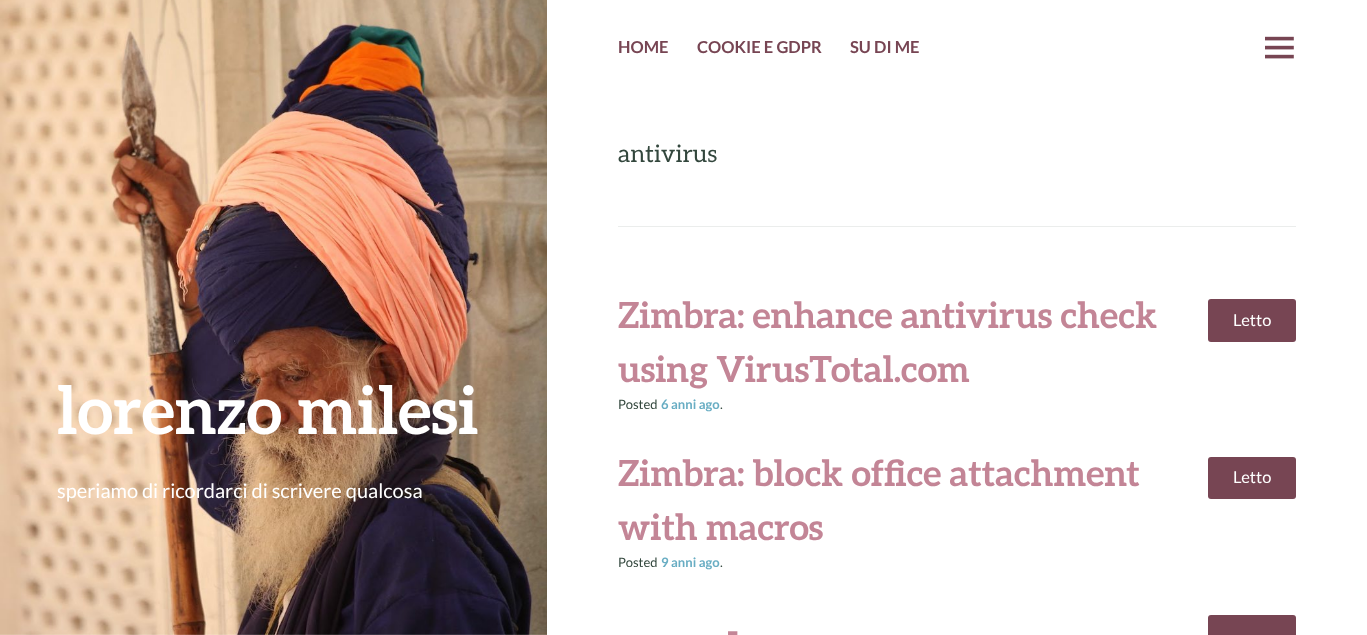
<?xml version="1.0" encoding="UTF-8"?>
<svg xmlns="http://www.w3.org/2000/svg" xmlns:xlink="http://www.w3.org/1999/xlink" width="1367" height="635">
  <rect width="100%" height="100%" fill="#ffffff" />
  <image x="0" y="0" width="547" height="635" xlink:href="image1.png" />
  <image x="1265" y="36" width="29" height="23" xlink:href="image2.png" />
  <rect x="618" y="226" width="678" height="1" fill="#ebedec" />
  <rect x="1208" y="299" width="88" height="43" rx="3" fill="#774553" />
  <rect x="1208" y="457" width="88" height="42" rx="3" fill="#774553" />
  <rect x="1208" y="615" width="88" height="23" rx="3" fill="#774553" />
  <text x="57" y="434" style="font-family: Aleo; font-size: 66px; font-weight: bold; fill: #ffffff">lorenzo milesi</text>
  <text x="57" y="498" style="font-family: Lato; font-size: 20px; fill: #ffffff">speriamo di ricordarci di scrivere qualcosa</text>
  <text x="618" y="53" style="font-family: Lato; font-size: 16.5px; font-weight: bold; fill: #774553">HOME</text>
  <text x="697" y="53" style="font-family: Lato; font-size: 16.5px; font-weight: bold; fill: #774553">COOKIE E GDPR</text>
  <text x="850" y="53" style="font-family: Lato; font-size: 16.5px; font-weight: bold; fill: #774553">SU DI ME</text>
  <text x="618" y="162" style="font-family: Aleo; font-size: 24px; fill: #33473d">antivirus</text>
  <text x="618" y="328" style="font-family: Aleo; font-size: 36px; font-weight: bold; fill: #c38596">Zimbra: enhance antivirus check</text>
  <text x="618" y="382" style="font-family: Aleo; font-size: 36px; font-weight: bold; fill: #c38596">using VirusTotal.com</text>
  <text x="1233" y="326" style="font-family: Lato; font-size: 16.5px; fill: #ffffff">Letto</text>
  <text x="618" y="409" style="font-family: Lato; font-size: 13px; fill: #33473d">Posted</text>
  <text x="661" y="409" style="font-family: Lato; font-size: 13px; font-weight: bold; fill: #68adc3">6 anni ago</text>
  <text x="720" y="409" style="font-family: Lato; font-size: 13px; fill: #33473d">.</text>
  <text x="618" y="486" style="font-family: Aleo; font-size: 36px; font-weight: bold; fill: #c38596">Zimbra: block office attachment</text>
  <text x="618" y="540" style="font-family: Aleo; font-size: 36px; font-weight: bold; fill: #c38596">with macros</text>
  <text x="1233" y="483" style="font-family: Lato; font-size: 16.5px; fill: #ffffff">Letto</text>
  <text x="618" y="567" style="font-family: Lato; font-size: 13px; fill: #33473d">Posted</text>
  <text x="661" y="567" style="font-family: Lato; font-size: 13px; font-weight: bold; fill: #68adc3">9 anni ago</text>
  <text x="720" y="567" style="font-family: Lato; font-size: 13px; fill: #33473d">.</text>
  <text x="727" y="644" style="font-family: Aleo; font-size: 36px; font-weight: bold; fill: #c38596">-</text>
</svg>
